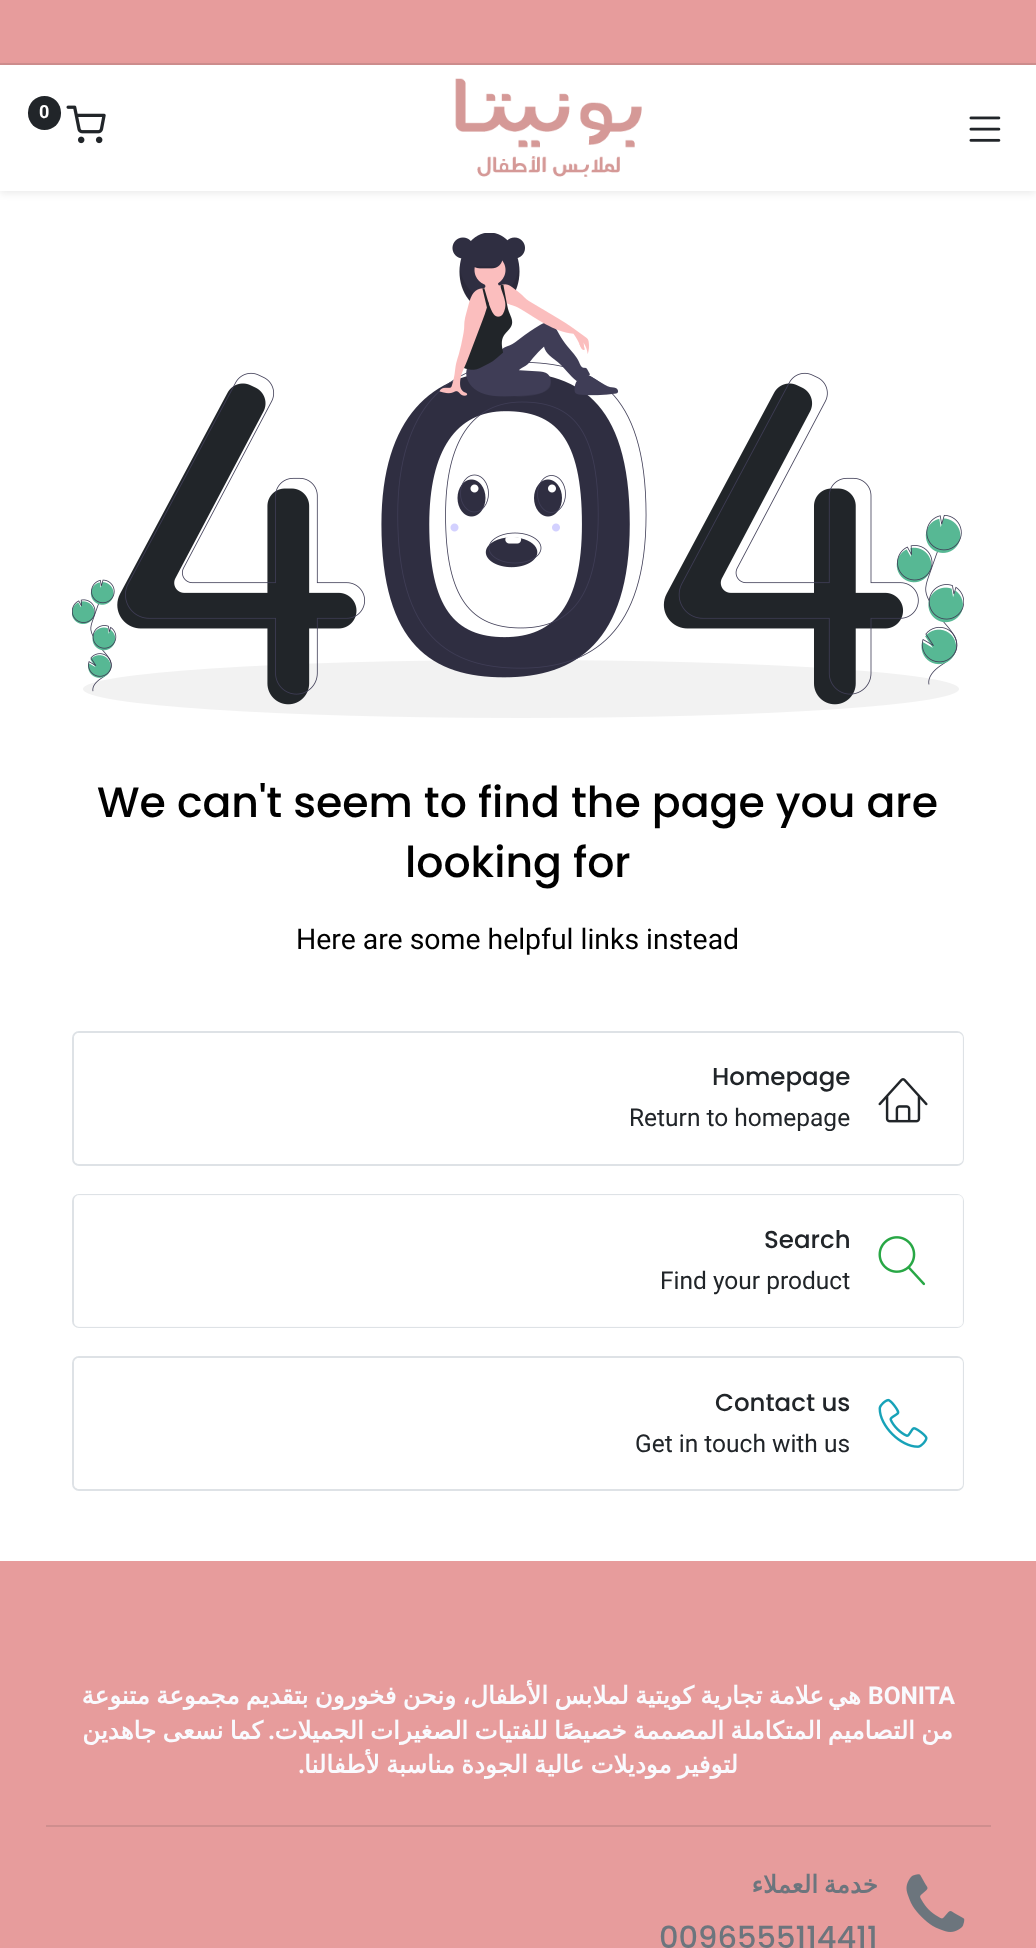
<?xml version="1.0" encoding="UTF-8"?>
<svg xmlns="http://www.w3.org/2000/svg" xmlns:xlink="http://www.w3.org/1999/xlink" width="1036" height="1948">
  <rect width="100%" height="100%" fill="#ffffff" />
  <rect width="1036" height="63" fill="#e79c9c" />
  <rect y="63" width="1036" height="2" fill="#cf8e8e" />
  <rect y="68" width="1036" height="126" fill="#000000" fill-opacity="0.07" filter="blur(3.5px)" />
  <rect y="65" width="1036" height="126" fill="#ffffff" />
  <image x="455" y="78" width="187" height="99" xlink:href="image1.png" />
  <image x="66" y="105" width="40" height="39" xlink:href="image2.png" />
  <rect x="28" y="96" width="33" height="34" rx="16.5" fill="#212529" />
  <image x="969" y="116" width="32" height="26" xlink:href="image3.png" />
  <image x="72" y="233" width="892" height="485" xlink:href="image4.png" />
  <rect x="73" y="1032" width="890" height="133" rx="6" fill="none" stroke="#dee2e6" stroke-width="2" />
  <rect x="74" y="1033" width="889" height="131" rx="5" fill="#ffffff" fill-opacity="0.9" />
  <image x="878" y="1078" width="50" height="45" xlink:href="image5.png" />
  <rect x="73" y="1195" width="890" height="132" rx="6" fill="none" stroke="#dee2e6" stroke-width="2" />
  <rect x="74" y="1195" width="889" height="132" rx="5" fill="#ffffff" fill-opacity="0.9" />
  <image x="878" y="1236" width="48" height="50" xlink:href="image6.png" />
  <rect x="73" y="1357" width="890" height="133" rx="6" fill="none" stroke="#dee2e6" stroke-width="2" />
  <rect x="74" y="1358" width="889" height="131" rx="5" fill="#ffffff" fill-opacity="0.9" />
  <image x="878" y="1398" width="50" height="50" xlink:href="image7.png" />
  <rect y="1561" width="1036" height="387" fill="#e79c9c" />
  <rect x="46" y="1825" width="945" height="2" fill="#cf8e8e" />
  <image x="906" y="1874" width="59" height="58" xlink:href="image8.png" />
  <text x="39" y="118" style="font-family: Roboto; font-size: 18px; font-weight: bold; fill: #ffffff">0</text>
  <text x="97" y="817" style="font-family: Poppins; font-size: 42.6px; font-weight: 500; fill: #000000">We can't seem to find the page you are</text>
  <text x="405" y="877" style="font-family: Poppins; font-size: 42.6px; font-weight: 500; fill: #000000">looking for</text>
  <text x="296" y="949" style="font-family: Roboto; font-size: 28.4px; fill: #000000">Here are some helpful links instead</text>
  <text x="712" y="1085" style="font-family: Poppins; font-size: 24.5px; font-weight: 500; fill: #212529">Homepage</text>
  <text x="629" y="1126" style="font-family: Roboto; font-size: 24.5px; fill: #212529">Return to homepage</text>
  <text x="764" y="1248" style="font-family: Poppins; font-size: 24.5px; font-weight: 500; fill: #212529">Search</text>
  <text x="660" y="1289" style="font-family: Roboto; font-size: 24.5px; fill: #212529">Find your product</text>
  <text x="715" y="1411" style="font-family: Poppins; font-size: 24.5px; font-weight: 500; fill: #212529">Contact us</text>
  <text x="635" y="1452" style="font-family: Roboto; font-size: 24.5px; fill: #212529">Get in touch with us</text>
  <text x="868" y="1704" style="font-family: Roboto; font-size: 24.5px; font-weight: bold; fill: #f9fafe">BONITA</text>
  <text x="861" y="1704" style="font-family: DejaVu Sans; font-size: 24.5px; font-weight: bold; direction: rtl; fill: #f9fafe">هي</text>
  <text x="824" y="1704" word-spacing="-1.5" style="font-family: DejaVu Sans; font-size: 24.5px; font-weight: bold; direction: rtl; fill: #f9fafe">علامة تجارية كويتية لملابس الأطفال، ونحن فخورون بتقديم مجموعة متنوعة</text>
  <text x="953" y="1739" word-spacing="-1.5" style="font-family: DejaVu Sans; font-size: 24.5px; font-weight: bold; direction: rtl; fill: #f9fafe">من التصاميم المتكاملة المصممة خصيصًا للفتيات الصغيرات الجميلات</text>
  <text x="275" y="1739" style="font-family: Roboto; font-size: 24.5px; font-weight: bold; direction: rtl; fill: #f9fafe">.</text>
  <text x="263" y="1739" word-spacing="-1.5" style="font-family: DejaVu Sans; font-size: 24.5px; font-weight: bold; direction: rtl; fill: #f9fafe">كما نسعى جاهدين</text>
  <text x="738" y="1773" word-spacing="-1.5" style="font-family: DejaVu Sans; font-size: 24.5px; font-weight: bold; direction: rtl; fill: #f9fafe">لتوفير موديلات عالية الجودة مناسبة لأطفالنا</text>
  <text x="305" y="1773" style="font-family: Roboto; font-size: 24.5px; font-weight: bold; direction: rtl; fill: #f9fafe">.</text>
  <text x="878" y="1893" word-spacing="-2" style="font-family: DejaVu Sans; font-size: 24.5px; font-weight: bold; direction: rtl; fill: #6c757d">خدمة العملاء</text>
  <text x="659" y="1948" style="font-family: Poppins; font-size: 30.5px; font-weight: 500; fill: #6c757d">0096555114411</text>
</svg>
